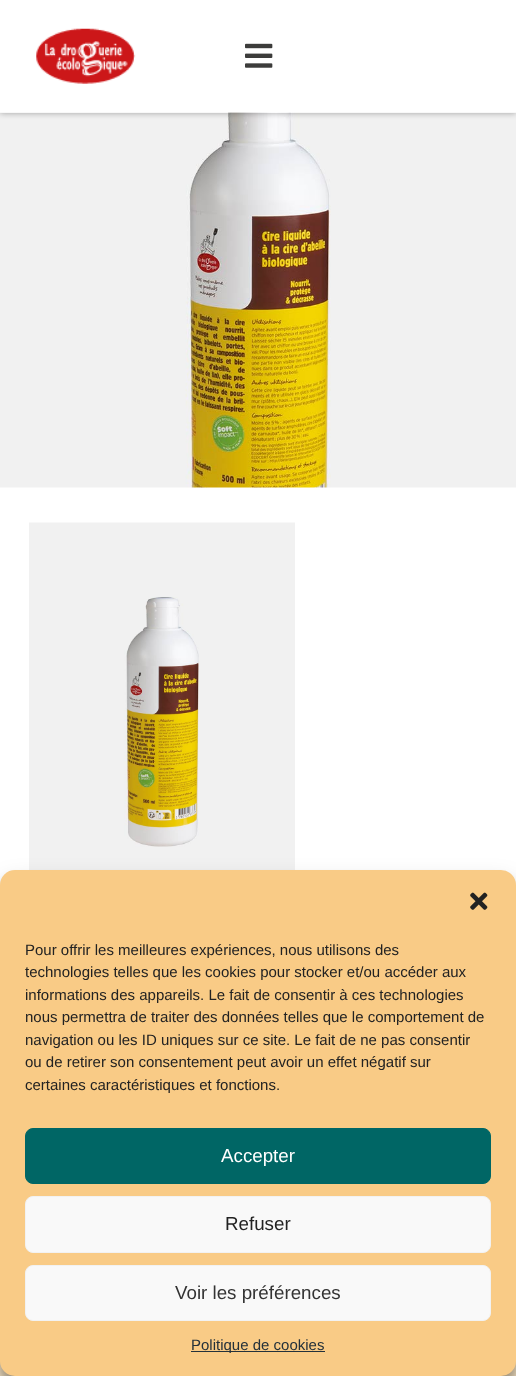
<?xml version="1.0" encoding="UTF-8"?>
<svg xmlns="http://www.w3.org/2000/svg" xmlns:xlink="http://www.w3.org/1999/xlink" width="516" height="1376">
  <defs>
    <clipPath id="clip1"><path d="M 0 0 h 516 v 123 h -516 z m 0 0 h 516 v 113 h -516 z" clip-rule="evenodd" /></clipPath>
  </defs>
  <rect width="100%" height="100%" fill="#ffffff" />
  <image x="0" y="112" width="516" height="376" xlink:href="image3.png" />
  <g clip-path="url(#clip1)">
    <rect width="516" height="113" fill="#000000" fill-opacity="0.34" filter="blur(3px)" />
  </g>
  <image x="36" y="28" width="100" height="56" xlink:href="image1.png" />
  <image x="245" y="43" width="28" height="25" xlink:href="image2.png" />
  <image x="29" y="522" width="266" height="348" xlink:href="image4.png" />
  <rect y="1361" width="516" height="15" fill="#f4e2c3" />
  <rect y="878" width="516" height="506" rx="15" fill="#000000" fill-opacity="0.23" filter="blur(4px)" />
  <rect y="883" width="516" height="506" rx="15" fill="#000000" fill-opacity="0.19" filter="blur(12.5px)" />
  <rect y="870" width="516" height="506" rx="15" fill="#f9cb86" />
  <image x="470" y="892" width="18" height="18" xlink:href="image5.png" />
  <rect x="25.5" y="1128.5" width="465" height="55" rx="7.5" fill="#006665" stroke="#006665" />
  <rect x="25.5" y="1196.5" width="465" height="56" rx="7.5" fill="#f9f9f9" stroke="#f2f2f2" />
  <rect x="25.5" y="1265.5" width="465" height="55" rx="7.5" fill="#f9f9f9" stroke="#f2f2f2" />
  <rect x="191" y="1351" width="134" height="1" fill="#24313a" />
  <text x="25" y="955" style="font-family: Liberation Sans; font-size: 15px; fill: #222222">Pour offrir les meilleures expériences, nous utilisons des</text>
  <text x="25" y="977" style="font-family: Liberation Sans; font-size: 15px; fill: #222222">technologies telles que les cookies pour stocker et/ou accéder aux</text>
  <text x="25" y="1000" style="font-family: Liberation Sans; font-size: 15px; fill: #222222">informations des appareils. Le fait de consentir à ces technologies</text>
  <text x="25" y="1022" style="font-family: Liberation Sans; font-size: 15px; fill: #222222">nous permettra de traiter des données telles que le comportement de</text>
  <text x="25" y="1045" style="font-family: Liberation Sans; font-size: 15px; fill: #222222">navigation ou les ID uniques sur ce site. Le fait de ne pas consentir</text>
  <text x="25" y="1067" style="font-family: Liberation Sans; font-size: 15px; fill: #222222">ou de retirer son consentement peut avoir un effet négatif sur</text>
  <text x="25" y="1090" style="font-family: Liberation Sans; font-size: 15px; fill: #222222">certaines caractéristiques et fonctions.</text>
  <text x="221" y="1162" style="font-family: Liberation Sans; font-size: 18.75px; fill: #ffffff">Accepter</text>
  <text x="225" y="1230" style="font-family: Liberation Sans; font-size: 18.75px; fill: #222222">Refuser</text>
  <text x="175" y="1299" style="font-family: Liberation Sans; font-size: 18.75px; fill: #333333">Voir les préférences</text>
  <text x="191" y="1350" style="font-family: Liberation Sans; font-size: 15px; fill: #24313a">Politique de cookies</text>
</svg>
